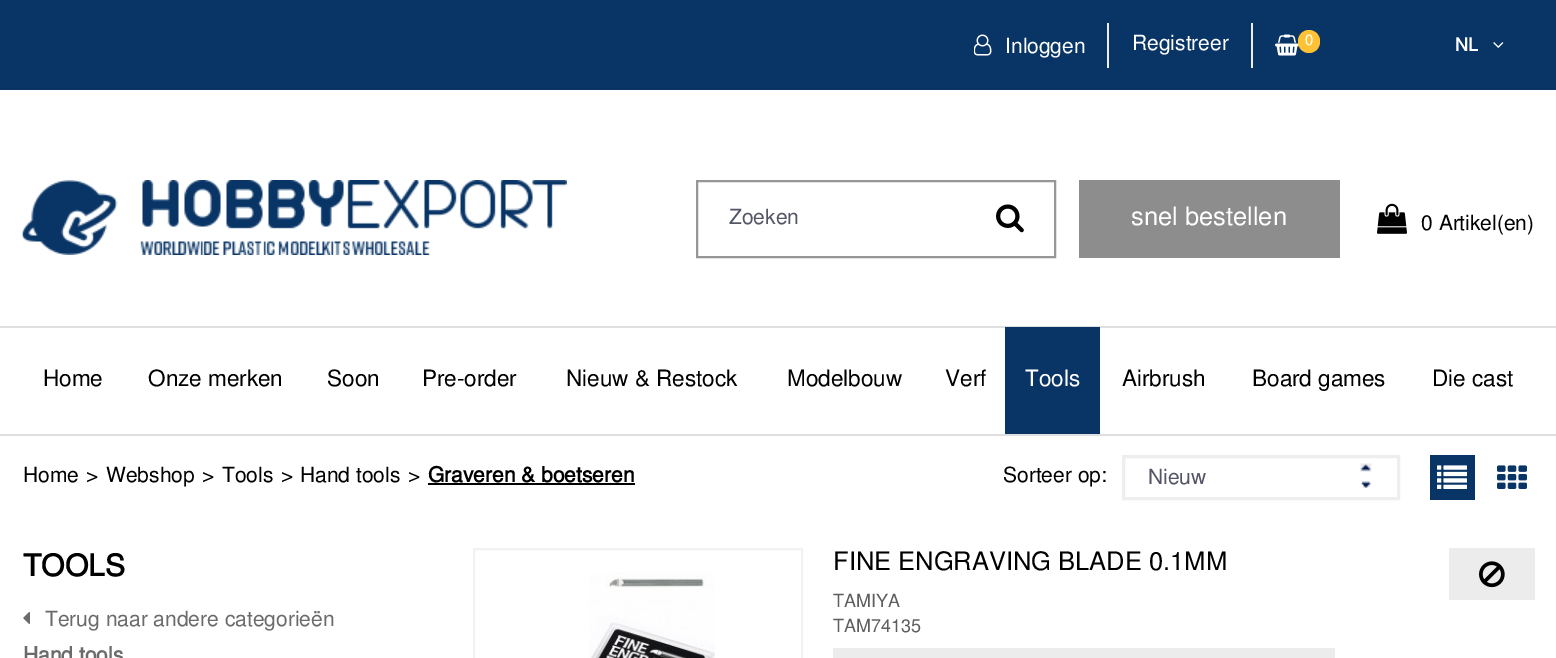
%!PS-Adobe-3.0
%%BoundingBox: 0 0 1556 658
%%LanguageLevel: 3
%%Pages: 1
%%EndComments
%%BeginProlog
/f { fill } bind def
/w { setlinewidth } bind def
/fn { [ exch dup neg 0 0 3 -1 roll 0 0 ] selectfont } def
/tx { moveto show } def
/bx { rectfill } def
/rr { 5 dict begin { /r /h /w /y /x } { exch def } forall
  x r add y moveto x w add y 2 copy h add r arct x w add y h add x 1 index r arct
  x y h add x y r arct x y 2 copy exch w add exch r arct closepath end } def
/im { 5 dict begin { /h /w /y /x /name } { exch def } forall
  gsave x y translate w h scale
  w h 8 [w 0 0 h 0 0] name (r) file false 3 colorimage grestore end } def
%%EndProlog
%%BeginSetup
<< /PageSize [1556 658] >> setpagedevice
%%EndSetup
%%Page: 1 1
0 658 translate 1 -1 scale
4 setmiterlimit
1 setgray
0 0 1556 658 bx
0.035 0.208 0.4 setrgbcolor
0 0 1556 90 bx
0.933 setgray
1107 23 2 45 bx
(image0.raw) 974 34 18 22 im
/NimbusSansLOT-Regular 21 fn
1 setgray
(Inloggen) 1005 53 tx
0.933 setgray
1251 23 2 45 bx
1 setgray
(Registreer) 1132 50 tx
(image1.raw) 1275 34 24 22 im
0.996 0.761 0.204 setrgbcolor
1298 30 22 23 11 rr f
/NimbusSansLOT-Regular 15 fn
1 setgray
(0) 1305 45 tx
/NimbusSansLOT-Bold 18 fn
(NL) 1455 51 tx
(image2.raw) 1493 42 11 6 im
(image3.raw) 22 180 545 75 im
0.592 setgray
2 w
697 181 358 76 rectstroke
/NimbusSansLOT-Regular 21 fn
0.329 0.333 0.404 setrgbcolor
(Zoeken) 729 224 tx
(image4.raw) 996 204 28 29 im
0.553 setgray
1079 180 261 78 bx
/NimbusSansLOT-Regular 25.5 fn
1 setgray
(snel bestellen) 1131 225 tx
(image5.raw) 1377 203 30 31 im
/NimbusSansLOT-Regular 21 fn
0 setgray
(0 Artikel\(en\)) 1421 230 tx
0.875 setgray
0 326 1556 2 bx
0 434 1556 2 bx
/NimbusSansLOT-Regular 22.5 fn
0 setgray
(Home) 43 386 tx
(Onze merken) 148 386 tx
(Soon) 327 386 tx
(Pre-order) 422 386 tx
(Nieuw & Restock) 566 386 tx
(Modelbouw) 787 386 tx
(Verf) 945 386 tx
0.035 0.208 0.4 setrgbcolor
1005 327 95 107 bx
1 setgray
(Tools) 1025 386 tx
0 setgray
(Airbrush) 1122 386 tx
(Board games) 1252 386 tx
(Die cast) 1432 386 tx
/NimbusSansLOT-Regular 21 fn
(Home) 23 482 tx
(>) 86 482 tx
(Webshop) 106 482 tx
(>) 202 482 tx
(Tools) 222 482 tx
(>) 281 482 tx
(Hand tools) 300 482 tx
(>) 408 482 tx
/NimbusSansLOT-Bold 21 fn
(Graveren & boetseren) 428 482 tx
428 483 207 2 bx
/NimbusSansLOT-Regular 21 fn
(Sorteer op:) 1003 482 tx
(image6.raw) 1360 463 12 25 im
0.933 setgray
3 w
1123.5 456.5 275 42 rectstroke
0.329 0.333 0.404 setrgbcolor
(Nieuw) 1148 484 tx
0.035 0.208 0.4 setrgbcolor
1430 455 45 45 bx
(image7.raw) 1437 465 30 24 im
(image8.raw) 1497 465 30 24 im
/NimbusSansLOT-Bold 30 fn
0 setgray
(TOOLS) 23 576 tx
(image9.raw) 23 612 7 12 im
/NimbusSansLOT-Regular 21 fn
0.42 setgray
(Terug naar andere categorieën) 45 626 tx
/NimbusSansLOT-Bold 21 fn
(Hand tools) 23 662 tx
0.949 setgray
2 w
474 549 328 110 rectstroke
(image10.raw) 589 572 126 86 im
/NimbusSansLOT-Regular 25.5 fn
0 setgray
(FINE ENGRAVING BLADE 0.1MM) 833 570 tx
/NimbusSansLOT-Regular 18 fn
0.369 setgray
(TAMIYA) 833 607 tx
(TAM74135) 833 632 tx
0.925 setgray
833 648 502 10 bx
1449 548 86 52 bx
(image11.raw) 1479 561 26 27 im
showpage
%%EOF
